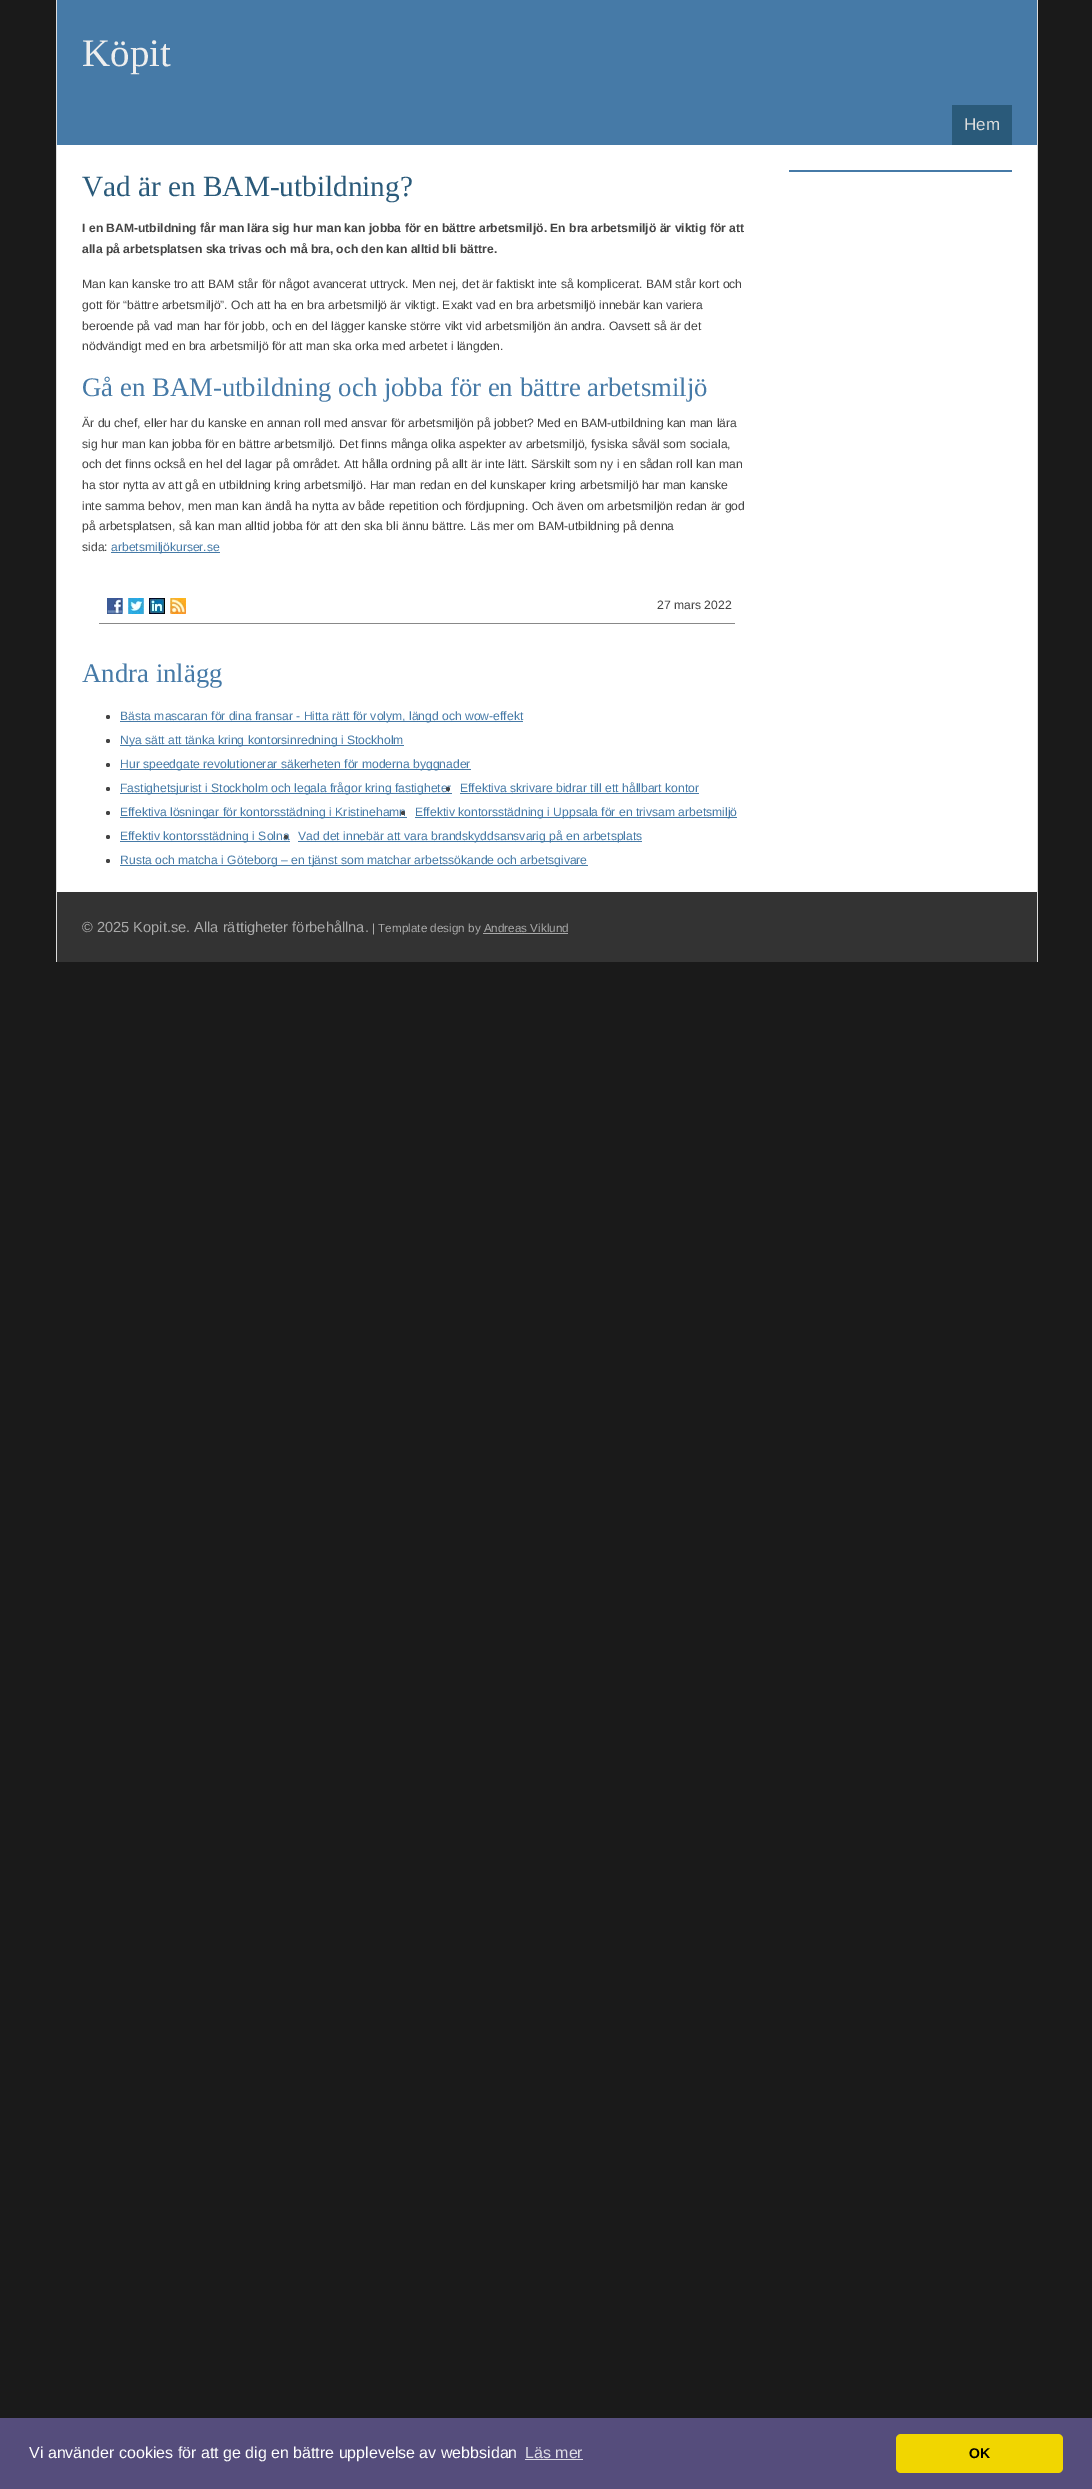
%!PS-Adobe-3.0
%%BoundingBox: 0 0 1092 2489
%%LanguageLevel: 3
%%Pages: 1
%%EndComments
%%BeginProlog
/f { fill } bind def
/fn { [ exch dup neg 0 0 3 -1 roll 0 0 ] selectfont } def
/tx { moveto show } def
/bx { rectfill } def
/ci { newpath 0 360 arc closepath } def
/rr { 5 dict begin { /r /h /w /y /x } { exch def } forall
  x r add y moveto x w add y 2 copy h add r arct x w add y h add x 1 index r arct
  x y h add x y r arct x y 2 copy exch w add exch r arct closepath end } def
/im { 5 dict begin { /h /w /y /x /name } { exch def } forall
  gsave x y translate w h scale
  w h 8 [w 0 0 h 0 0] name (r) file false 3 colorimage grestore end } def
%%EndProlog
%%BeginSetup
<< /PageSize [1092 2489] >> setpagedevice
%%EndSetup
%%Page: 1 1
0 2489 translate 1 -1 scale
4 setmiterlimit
0.102 setgray
0 0 1092 2489 bx
0.275 0.478 0.655 setrgbcolor
57 0 980 145 bx
0.867 setgray
1037 0 1 962 bx
56 0 1 962 bx
/LiberationSerif-Regular 39 fn
0.933 setgray
(Köpit) 82 66 tx
0.165 0.353 0.478 setrgbcolor
952 105 60 40 bx
/LiberationSans-Regular 17 fn
0.867 setgray
(Hem) 964 130 tx
1 setgray
57 145 980 747 bx
0.275 0.478 0.655 setrgbcolor
789 170 223 2 bx
/LiberationSerif-Regular 29.25 fn
0.165 0.353 0.478 setrgbcolor
(Vad är en BAM-utbildning?) 82 196 tx
/LiberationSans-Bold 12.15 fn
0.267 setgray
(I en BAM-utbildning får man lära sig hur man kan jobba för en bättre arbetsmiljö. En bra arbetsmiljö är viktig för att) 82 232 tx
(alla på arbetsplatsen ska trivas och må bra, och den kan alltid bli bättre.) 82 253 tx
/LiberationSans-Regular 12.15 fn
(Man kan kanske tro att BAM står för något avancerat uttryck. Men nej, det är faktiskt inte så komplicerat. BAM står kort och) 82 288 tx
(gott för “bättre arbetsmiljö”. Och att ha en bra arbetsmiljö är viktigt. Exakt vad en bra arbetsmiljö innebär kan variera) 82 309 tx
(beroende på vad man har för jobb, och en del lägger kanske större vikt vid arbetsmiljön än andra. Oavsett så är det) 82 330 tx
(nödvändigt med en bra arbetsmiljö för att man ska orka med arbetet i längden.) 82 350 tx
/LiberationSerif-Regular 26.75 fn
0.275 0.478 0.655 setrgbcolor
(Gå en BAM-utbildning och jobba för en bättre arbetsmiljö) 82 396 tx
/LiberationSans-Regular 12.15 fn
0.267 setgray
(Är du chef, eller har du kanske en annan roll med ansvar för arbetsmiljön på jobbet? Med en BAM-utbildning kan man lära) 82 427 tx
(sig hur man kan jobba för en bättre arbetsmiljö. Det finns många olika aspekter av arbetsmiljö, fysiska såväl som sociala,) 82 448 tx
(och det finns också en hel del lagar på området. Att hålla ordning på allt är inte lätt. Särskilt som ny i en sådan roll kan man) 82 468 tx
(ha stor nytta av att gå en utbildning kring arbetsmiljö. Har man redan en del kunskaper kring arbetsmiljö har man kanske) 82 489 tx
(inte samma behov, men man kan ändå ha nytta av både repetition och fördjupning. Och även om arbetsmiljön redan är god) 82 510 tx
(på arbetsplatsen, så kan man alltid jobba för att den ska bli ännu bättre. Läs mer om BAM-utbildning på denna) 82 530 tx
(sida:) 82 551 tx
0.275 0.478 0.655 setrgbcolor
111 552 109 1 bx
(arbetsmiljökurser.se) 111 551 tx
(image0.raw) 107 598 16 16 im
(image1.raw) 128 598 16 16 im
(image2.raw) 149 598 16 16 im
(image3.raw) 170 598 16 16 im
0.267 setgray
(27 mars 2022) 657 609 tx
0.533 setgray
99 623 636 1 bx
/LiberationSerif-Regular 26.75 fn
0.275 0.478 0.655 setrgbcolor
(Andra inlägg) 82 682 tx
0.267 setgray
108 717 2 ci f
0.275 0.478 0.655 setrgbcolor
120 721 403 1 bx
/LiberationSans-Regular 12.15 fn
(Bästa mascaran för dina fransar - Hitta rätt för volym, längd och wow-effekt) 120 720 tx
0.267 setgray
108 741 2 ci f
0.275 0.478 0.655 setrgbcolor
120 745 284 1 bx
(Nya sätt att tänka kring kontorsinredning i Stockholm) 120 744 tx
0.267 setgray
108 765 2 ci f
0.275 0.478 0.655 setrgbcolor
120 769 351 1 bx
(Hur speedgate revolutionerar säkerheten för moderna byggnader) 120 768 tx
0.267 setgray
108 789 2 ci f
0.275 0.478 0.655 setrgbcolor
120 793 332 1 bx
(Fastighetsjurist i Stockholm och legala frågor kring fastigheter) 120 792 tx
0.267 setgray
448 789 2 ci f
0.275 0.478 0.655 setrgbcolor
(Effektiva skrivare bidrar till ett hållbart kontor) 460 792 tx
460 793 239 1 bx
0.267 setgray
108 813 2 ci f
0.275 0.478 0.655 setrgbcolor
120 817 287 1 bx
(Effektiva lösningar för kontorsstädning i Kristinehamn) 120 816 tx
0.267 setgray
403 813 2 ci f
0.275 0.478 0.655 setrgbcolor
415 817 322 1 bx
(Effektiv kontorsstädning i Uppsala för en trivsam arbetsmiljö) 415 816 tx
0.267 setgray
108 837 2 ci f
0.275 0.478 0.655 setrgbcolor
120 841 170 1 bx
(Effektiv kontorsstädning i Solna) 120 840 tx
0.267 setgray
286 837 2 ci f
0.275 0.478 0.655 setrgbcolor
298 841 344 1 bx
(Vad det innebär att vara brandskyddsansvarig på en arbetsplats) 298 840 tx
0.267 setgray
108 861 2 ci f
0.275 0.478 0.655 setrgbcolor
120 865 468 1 bx
(Rusta och matcha i Göteborg – en tjänst som matchar arbetssökande och arbetsgivare) 120 864 tx
0.2 setgray
57 892 980 70 bx
/LiberationSans-Regular 14.6 fn
0.667 setgray
(© 2025 Kopit.se. Alla rättigheter förbehållna.) 82 932 tx
/LiberationSans-Regular 11.7 fn
(| Template design by Andreas Viklund) 372 932 tx
483 933 85 1 bx
0.333 0.302 0.486 setrgbcolor
0 2418 1092 71 bx
/LiberationSans-Regular 16 fn
1 setgray
(Vi använder cookies för att ge dig en bättre upplevelse av webbsidan) 29 2458 tx
0.867 0.859 0.898 setrgbcolor
(Läs mer) 525 2458 tx
525 2459 58 1 bx
0.945 0.839 0 setrgbcolor
896 2434 167 39 5 rr f
/LiberationSans-Bold 14 fn
0 setgray
(OK) 969 2458 tx
showpage
%%EOF
